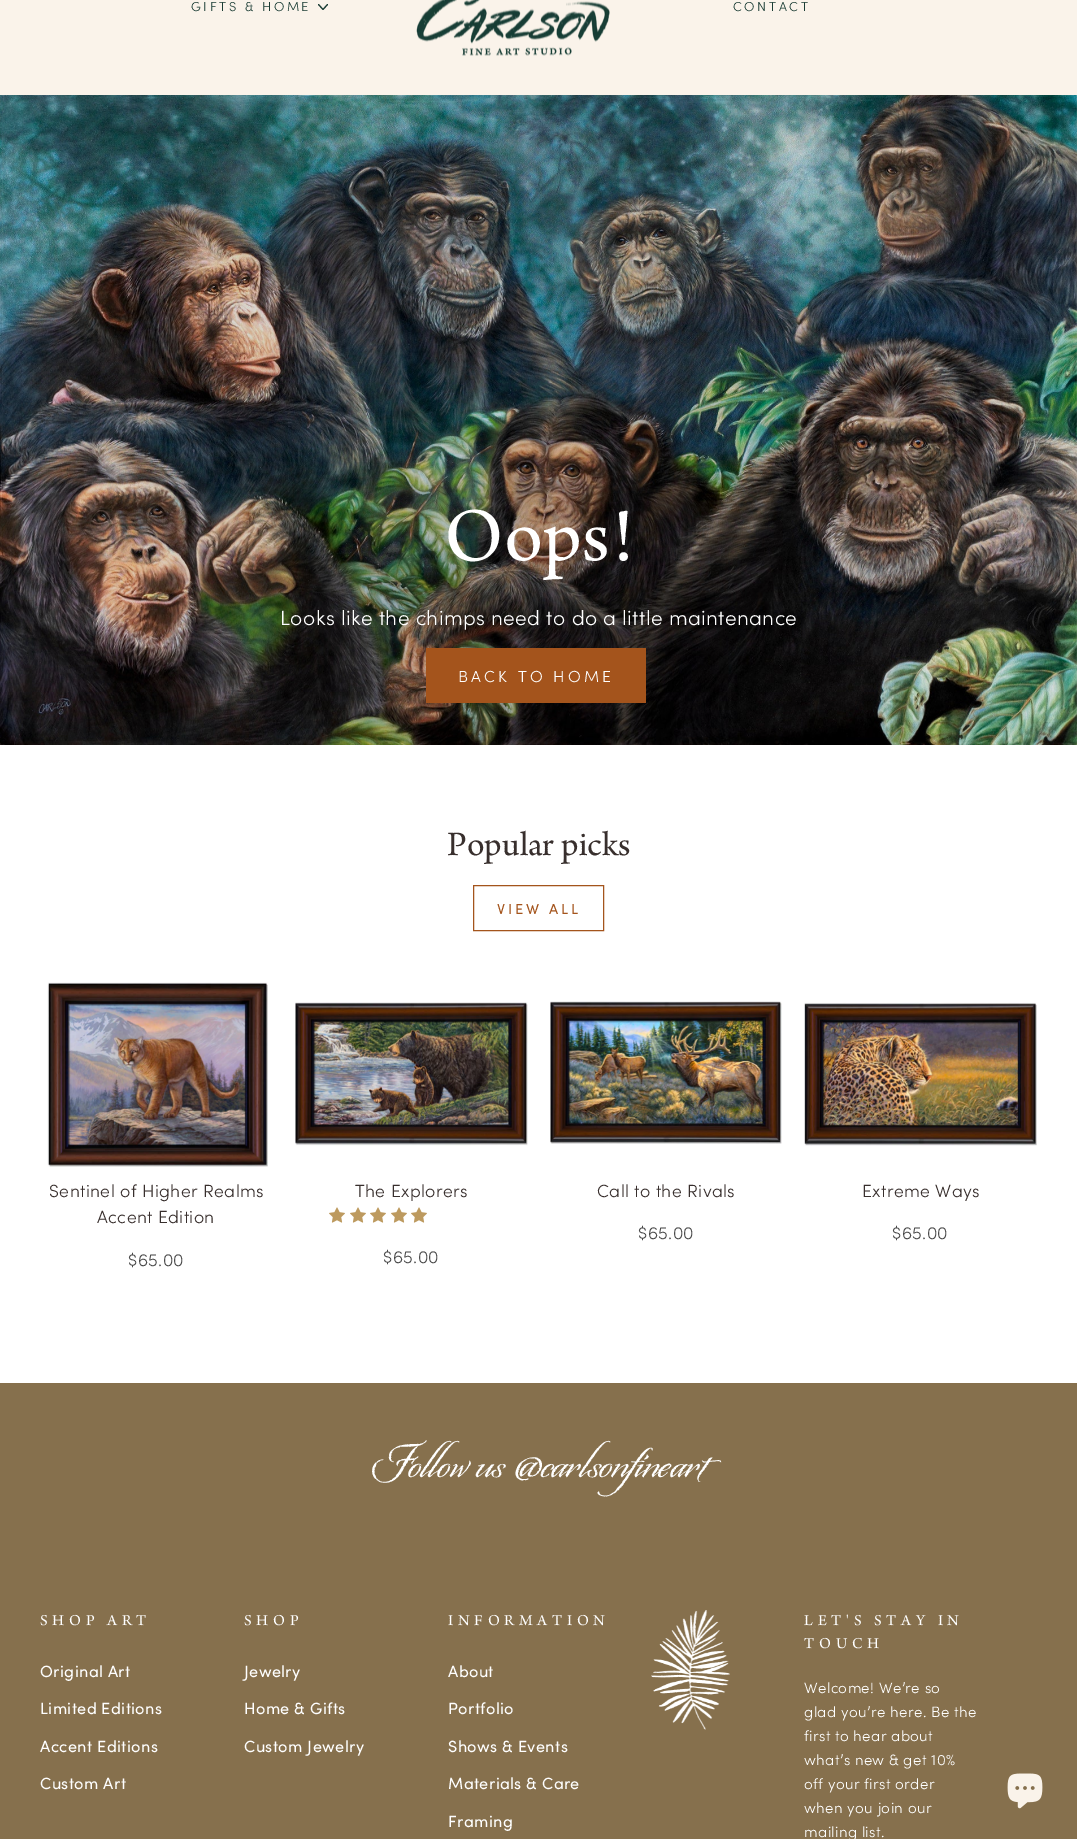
%!PS-Adobe-3.0
%%BoundingBox: 0 0 1077 1839
%%LanguageLevel: 3
%%Pages: 1
%%EndComments
%%BeginProlog
/m { moveto } bind def
/l { lineto } bind def
/S { stroke } bind def
/w { setlinewidth } bind def
/fn { [ exch dup neg 0 0 3 -1 roll 0 0 ] selectfont } def
/tx { moveto show } def
/bx { rectfill } def
/im { 5 dict begin { /h /w /y /x /name } { exch def } forall
  gsave x y translate w h scale
  w h 8 [w 0 0 h 0 0] name (r) file false 3 colorimage grestore end } def
%%EndProlog
%%BeginSetup
<< /PageSize [1077 1839] >> setpagedevice
%%EndSetup
%%Page: 1 1
0 1839 translate 1 -1 scale
4 setmiterlimit
1 setgray
0 0 1077 1839 bx
0.98 0.953 0.918 setrgbcolor
0 0 1077 95 bx
/Sofia-Light 13 fn
0.102 0.235 0.204 setrgbcolor
191 11 m 2.6 0 (GIFTS & HOME) ashow
1.1 w
1 setlinecap
1 setlinejoin
318.5 4.5 m 323 9.5 l 327.5 4.5 l S
(image0.raw) 416 0 194 56 im
733 11 m 2.6 0 (CONTACT) ashow
(image1.raw) 0 95 1077 650 im
/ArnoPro-Regular 80 fn
1 setgray
(Oops!) 444 560 tx
/Sofia-Light 20.8 fn
280 625 m 0.4 0 (Looks like the chimps need to do a little maintenance) ashow
0.643 0.329 0.11 setrgbcolor
426 648 220 55 bx
/Sofia-Light 16 fn
1 setgray
458 682 m 3.25 0 (BACK TO HOME) ashow
/ArnoPro-Regular 36 fn
0.22 0.184 0.176 setrgbcolor
(Popular picks) 447 855 tx
0.643 0.329 0.11 setrgbcolor
1 w
0 setlinecap
0 setlinejoin
473.5 885.5 130 45 rectstroke
/Sofia-Regular 14.5 fn
497 914 m 3 0 (VIEW ALL) ashow
(image2.raw) 47 982 221 185 im
/Sofia-Light 17.6 fn
0.22 0.184 0.176 setrgbcolor
49 1197 m 0.4 0 (Sentinel of Higher Realms) ashow
97 1223 m 0.4 0 (Accent Edition) ashow
0.29 setgray
128 1266 m 0.4 0 ($65.00) ashow
(image3.raw) 295 1002 233 144 im
0.22 0.184 0.176 setrgbcolor
355 1197 m 0.4 0 (The Explorers) ashow
(image4.raw) 329 1207 16 16 im
(image4.raw) 350 1207 16 16 im
(image4.raw) 370 1207 16 16 im
(image4.raw) 391 1207 16 16 im
(image4.raw) 411 1207 16 16 im
0.29 setgray
383 1263 m 0.4 0 ($65.00) ashow
(image5.raw) 550 1001 232 143 im
0.22 0.184 0.176 setrgbcolor
597 1197 m 0.4 0 (Call to the Rivals) ashow
0.29 setgray
638 1239 m 0.4 0 ($65.00) ashow
(image6.raw) 804 1002 233 144 im
0.22 0.184 0.176 setrgbcolor
862 1197 m 0.4 0 (Extreme Ways) ashow
0.29 setgray
892 1239 m 0.4 0 ($65.00) ashow
0.525 0.439 0.302 setrgbcolor
0 1383 1077 456 bx
/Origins-Regular 48 fn
1 setgray
(Follow us @carlsonfineart) 370 1477 tx
/ArnoPro-Regular 16 fn
40 1625 m 4.75 0 (SHOP ART) ashow
/Sofia-Regular 16.25 fn
40 1677 m 0.4 0 (Original Art) ashow
40 1714 m 0.4 0 (Limited Editions) ashow
40 1752 m 0.4 0 (Accent Editions) ashow
40 1789 m 0.4 0 (Custom Art) ashow
/ArnoPro-Regular 16 fn
244 1625 m 4.75 0 (SHOP) ashow
/Sofia-Regular 16.25 fn
244 1677 m 0.4 0 (Jewelry) ashow
244 1714 m 0.4 0 (Home & Gifts) ashow
244 1752 m 0.4 0 (Custom Jewelry) ashow
/ArnoPro-Regular 16 fn
448 1625 m 4.75 0 (INFORMATION) ashow
/Sofia-Regular 16.25 fn
448 1677 m 0.4 0 (About) ashow
448 1714 m 0.4 0 (Portfolio) ashow
448 1752 m 0.4 0 (Shows & Events) ashow
448 1789 m 0.4 0 (Materials & Care) ashow
448 1827 m 0.4 0 (Framing) ashow
(image7.raw) 651 1610 79 120 im
/ArnoPro-Regular 16 fn
804 1625 m 4.75 0 (LET'S STAY IN) ashow
804 1648 m 4.75 0 (TOUCH) ashow
/Sofia-Light 15 fn
804 1693 m 0.4 0 (Welcome! We’re so) ashow
804 1717 m 0.4 0 (glad you’re here. Be the) ashow
804 1741 m 0.4 0 (first to hear about) ashow
804 1765 m 0.4 0 (what’s new & get 10%) ashow
804 1789 m 0.4 0 (off your first order) ashow
804 1813 m 0.4 0 (when you join our) ashow
804 1837 m 0.4 0 (mailing list.) ashow
(image8.raw) 1007 1773 36 36 im
showpage
%%EOF
